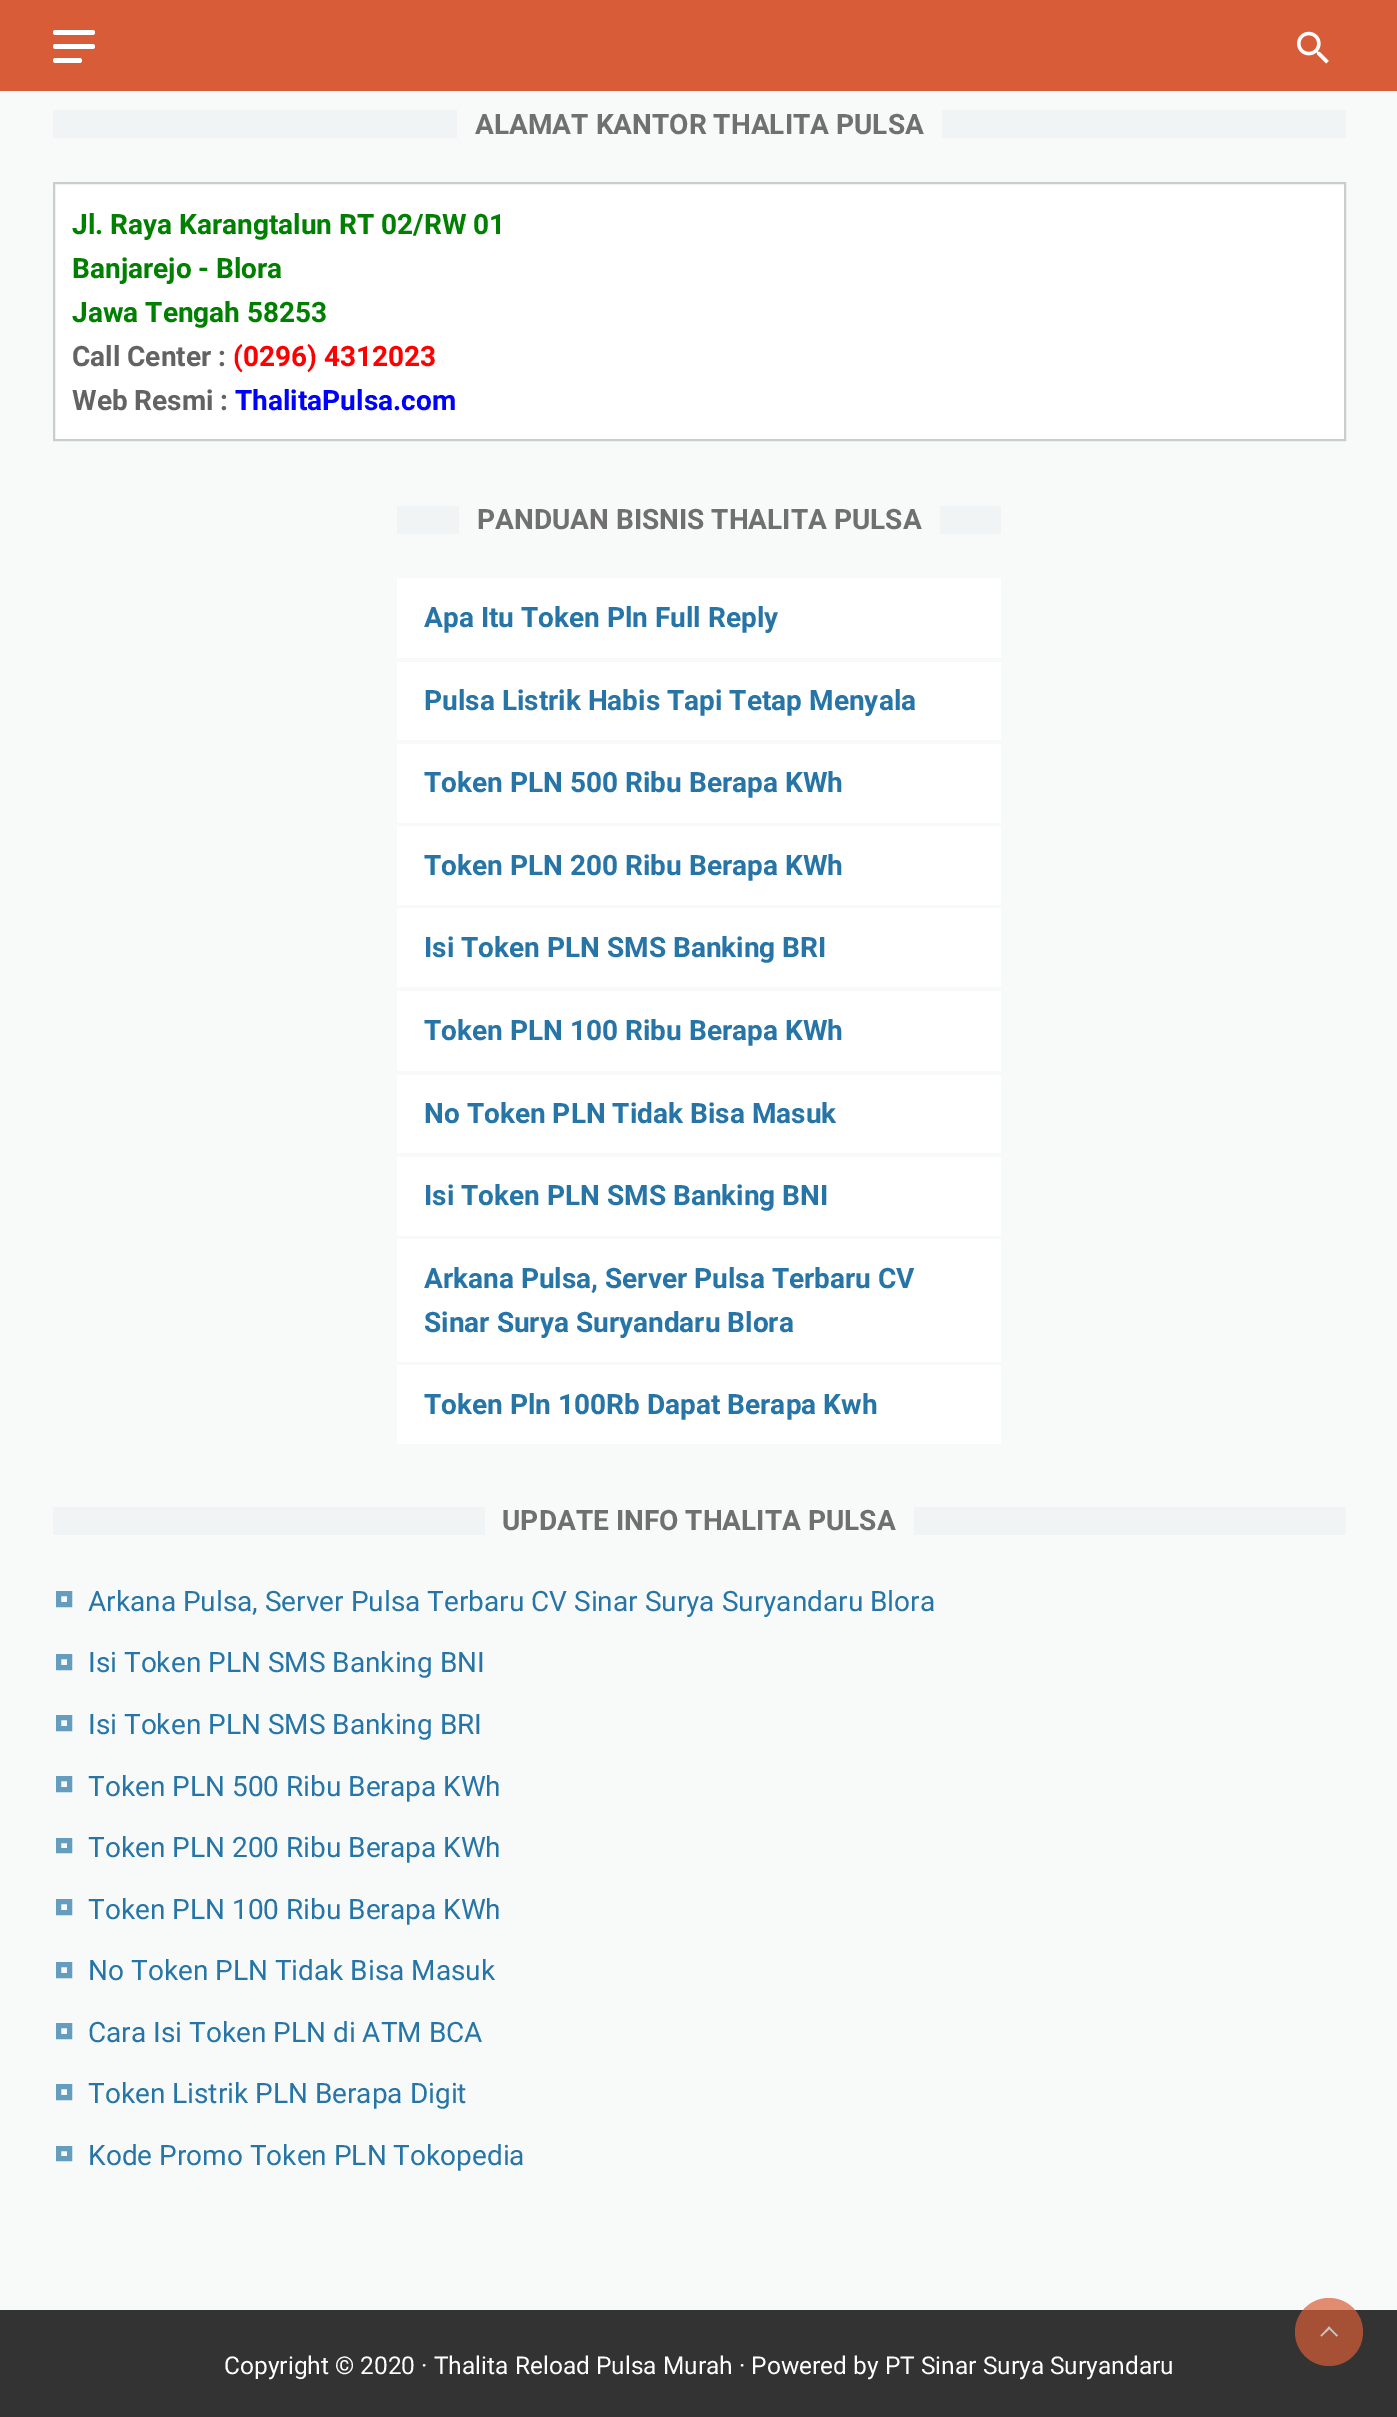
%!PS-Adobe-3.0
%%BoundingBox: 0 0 1397 2417
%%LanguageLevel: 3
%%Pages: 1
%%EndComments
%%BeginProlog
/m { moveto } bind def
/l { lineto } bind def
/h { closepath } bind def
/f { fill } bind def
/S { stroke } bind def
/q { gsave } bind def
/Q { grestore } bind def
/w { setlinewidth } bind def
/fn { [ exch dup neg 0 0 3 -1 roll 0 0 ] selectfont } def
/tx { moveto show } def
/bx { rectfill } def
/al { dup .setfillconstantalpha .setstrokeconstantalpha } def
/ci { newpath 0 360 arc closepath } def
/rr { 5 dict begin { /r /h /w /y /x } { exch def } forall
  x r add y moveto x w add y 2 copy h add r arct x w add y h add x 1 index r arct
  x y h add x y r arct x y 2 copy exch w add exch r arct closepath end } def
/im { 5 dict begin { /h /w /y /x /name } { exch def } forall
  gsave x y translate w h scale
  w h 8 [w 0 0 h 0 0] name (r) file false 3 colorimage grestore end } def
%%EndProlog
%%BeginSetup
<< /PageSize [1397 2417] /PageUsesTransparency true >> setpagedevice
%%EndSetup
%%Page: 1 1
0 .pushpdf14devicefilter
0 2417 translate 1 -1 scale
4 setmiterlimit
0.2 setgray
0 0 1397 2417 bx
0.843 0.361 0.216 setrgbcolor
0 0 1397 91 bx
1 setgray
53 30 42 5 2.5 rr f
53 44 42 5 2.5 rr f
53 58 29 5 2.5 rr f
(image0.raw) 1297 31 32 33 im
0.973 0.98 0.98 setrgbcolor
0 91 1397 2219 bx
0.941 0.957 0.957 setrgbcolor
53 110 1293 28 bx
0.973 0.98 0.98 setrgbcolor
457 110 485 28 bx
/Roboto-Bold 28 fn
0.439 setgray
(ALAMAT KANTOR THALITA PULSA) 475 134 tx
1 setgray
54 183 m 1345 183 l 1345 440 l 54 440 l h q f Q
0.8 setgray
2 w
S
0 0.502 0 setrgbcolor
(Jl. Raya Karangtalun RT 02/RW 01) 72 234 tx
(Banjarejo - Blora) 72 278 tx
(Jawa Tengah 58253) 72 322 tx
0.388 setgray
(Call Center :) 72 366 tx
1 0 0 setrgbcolor
(\(0296\) 4312023) 233 366 tx
0.388 setgray
(Web Resmi :) 72 410 tx
0 0 1 setrgbcolor
(ThalitaPulsa.com) 235 410 tx
0.941 0.957 0.957 setrgbcolor
397 506 604 28 bx
0.973 0.98 0.98 setrgbcolor
459 506 481 28 bx
0.439 setgray
(PANDUAN BISNIS THALITA PULSA) 477 529 tx
1 setgray
397 578 604 80 bx
0.149 0.459 0.651 setrgbcolor
(Apa Itu Token Pln Full Reply) 424 627 tx
1 setgray
397 662 604 78 bx
0.149 0.459 0.651 setrgbcolor
(Pulsa Listrik Habis Tapi Tetap Menyala) 424 710 tx
1 setgray
397 744 604 79 bx
0.149 0.459 0.651 setrgbcolor
(Token PLN 500 Ribu Berapa KWh) 424 792 tx
1 setgray
397 826 604 79 bx
0.149 0.459 0.651 setrgbcolor
(Token PLN 200 Ribu Berapa KWh) 424 875 tx
1 setgray
397 908 604 79 bx
0.149 0.459 0.651 setrgbcolor
(Isi Token PLN SMS Banking BRI) 424 957 tx
1 setgray
397 991 604 80 bx
0.149 0.459 0.651 setrgbcolor
(Token PLN 100 Ribu Berapa KWh) 424 1040 tx
1 setgray
397 1075 604 78 bx
0.149 0.459 0.651 setrgbcolor
(No Token PLN Tidak Bisa Masuk) 424 1123 tx
1 setgray
397 1157 604 79 bx
0.149 0.459 0.651 setrgbcolor
(Isi Token PLN SMS Banking BNI) 424 1205 tx
1 setgray
397 1239 604 123 bx
0.149 0.459 0.651 setrgbcolor
(Arkana Pulsa, Server Pulsa Terbaru CV) 424 1288 tx
(Sinar Surya Suryandaru Blora) 424 1332 tx
1 setgray
397 1365 604 79 bx
0.149 0.459 0.651 setrgbcolor
(Token Pln 100Rb Dapat Berapa Kwh) 424 1414 tx
0.941 0.957 0.957 setrgbcolor
53 1507 1293 28 bx
0.973 0.98 0.98 setrgbcolor
485 1507 429 28 bx
0.439 setgray
(UPDATE INFO THALITA PULSA) 502 1530 tx
0.396 0.616 0.749 setrgbcolor
5 w
58.5 1593.5 11 11 rectstroke
/Roboto-Regular 28 fn
0.149 0.459 0.651 setrgbcolor
(Arkana Pulsa, Server Pulsa Terbaru CV Sinar Surya Suryandaru Blora) 88 1611 tx
0.396 0.616 0.749 setrgbcolor
58.5 1656.5 11 11 rectstroke
0.149 0.459 0.651 setrgbcolor
(Isi Token PLN SMS Banking BNI) 88 1672 tx
0.396 0.616 0.749 setrgbcolor
58.5 1717.5 11 11 rectstroke
0.149 0.459 0.651 setrgbcolor
(Isi Token PLN SMS Banking BRI) 88 1734 tx
0.396 0.616 0.749 setrgbcolor
58.5 1778.5 11 11 rectstroke
0.149 0.459 0.651 setrgbcolor
(Token PLN 500 Ribu Berapa KWh) 88 1796 tx
0.396 0.616 0.749 setrgbcolor
58.5 1840.5 11 10 rectstroke
0.149 0.459 0.651 setrgbcolor
(Token PLN 200 Ribu Berapa KWh) 88 1857 tx
0.396 0.616 0.749 setrgbcolor
58.5 1901.5 11 11 rectstroke
0.149 0.459 0.651 setrgbcolor
(Token PLN 100 Ribu Berapa KWh) 88 1919 tx
0.396 0.616 0.749 setrgbcolor
58.5 1964.5 11 11 rectstroke
0.149 0.459 0.651 setrgbcolor
(No Token PLN Tidak Bisa Masuk) 88 1980 tx
0.396 0.616 0.749 setrgbcolor
58.5 2025.5 11 11 rectstroke
0.149 0.459 0.651 setrgbcolor
(Cara Isi Token PLN di ATM BCA) 88 2042 tx
0.396 0.616 0.749 setrgbcolor
58.5 2086.5 11 11 rectstroke
0.149 0.459 0.651 setrgbcolor
(Token Listrik PLN Berapa Digit) 88 2103 tx
0.396 0.616 0.749 setrgbcolor
58.5 2148.5 11 10 rectstroke
0.149 0.459 0.651 setrgbcolor
(Kode Promo Token PLN Tokopedia) 88 2165 tx
/Roboto-Regular 24.5 fn
1 setgray
(Copyright © 2020 · Thalita Reload Pulsa Murah · Powered by PT Sinar Surya Suryandaru) 224 2374 tx
0.7 al
0.843 0.361 0.216 setrgbcolor
1329 2332 34 ci f
1 al
0.761 setgray
1320.5 2335.5 m 1329 2326.5 l 1330.5 2328 l 1321.5 2336.5 l h f
1328 2328 m 1329 2326.5 l 1338 2335.5 l 1336.5 2336.5 l h f
.poppdf14devicefilter showpage
%%EOF
